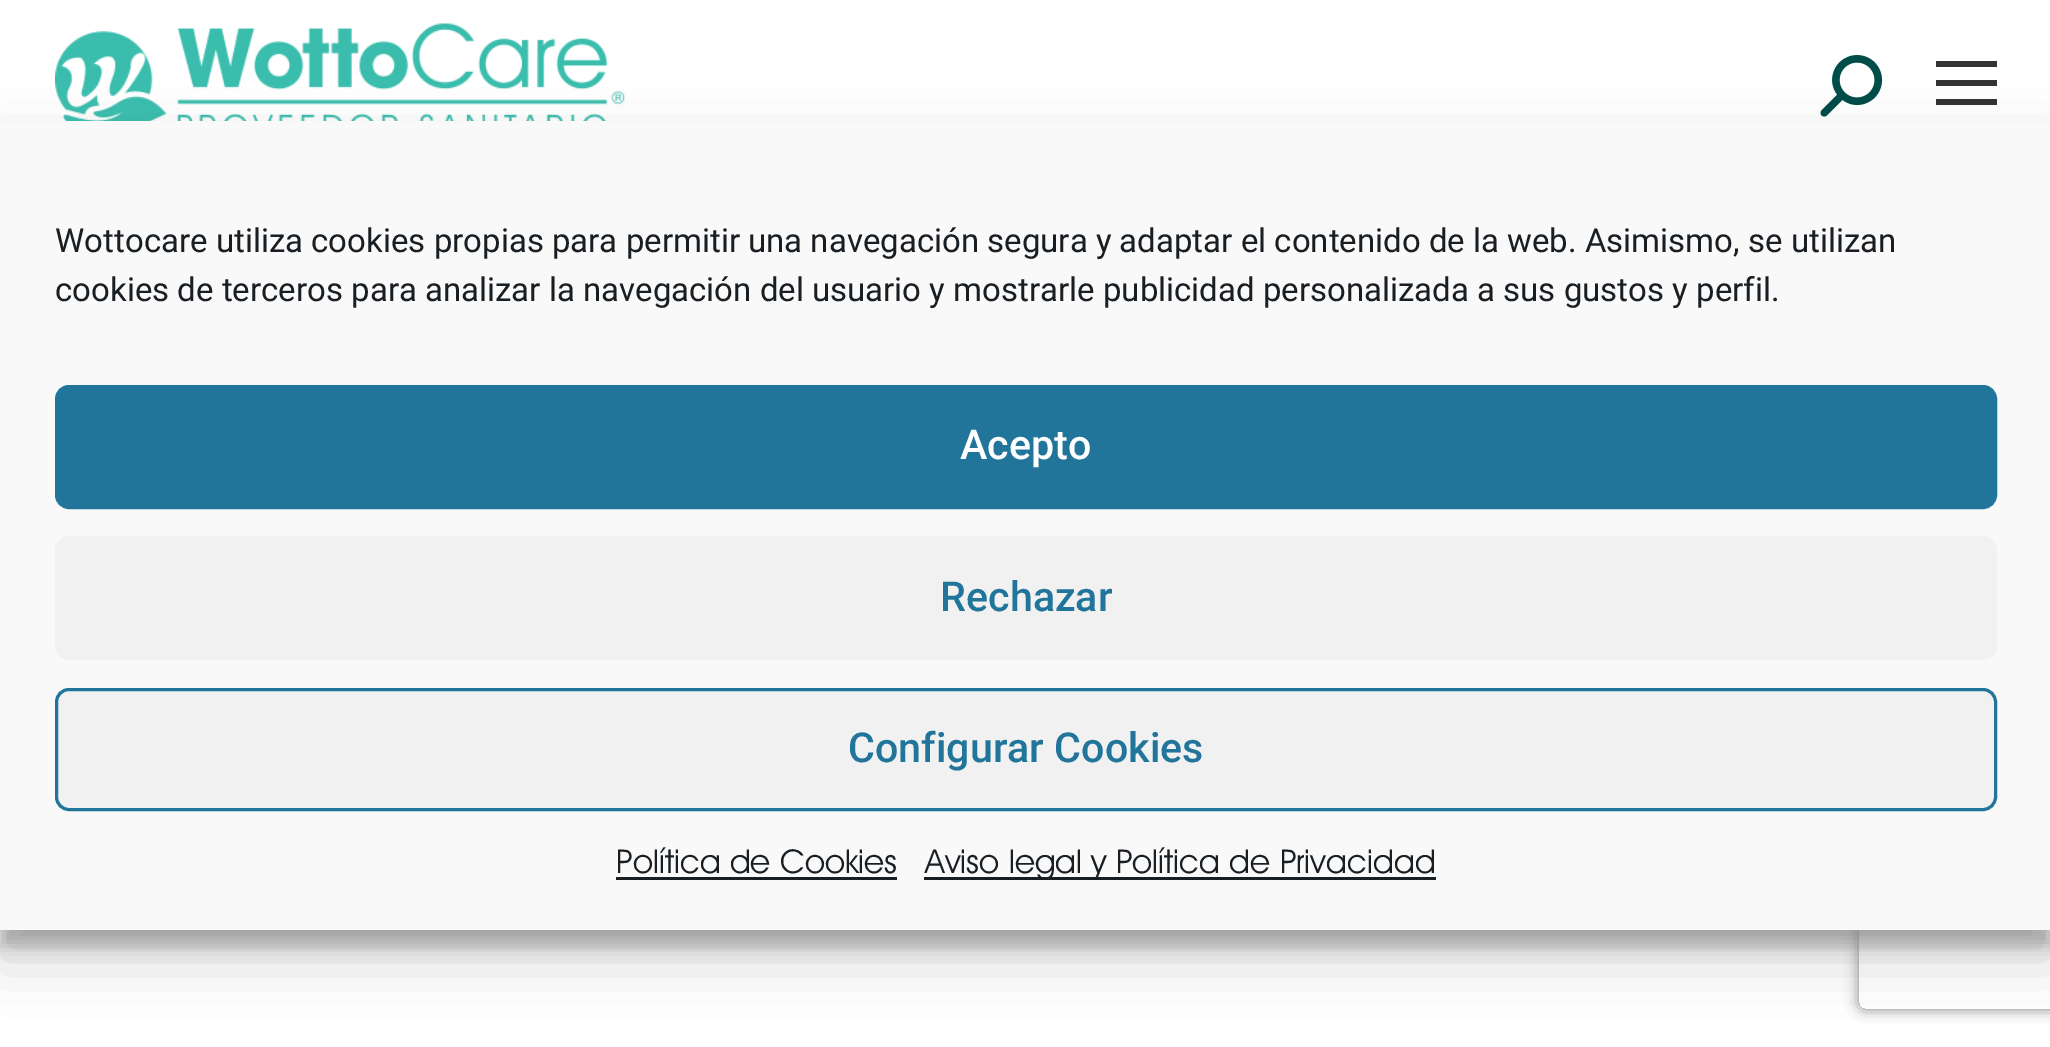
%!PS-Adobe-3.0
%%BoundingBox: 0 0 2050 1047
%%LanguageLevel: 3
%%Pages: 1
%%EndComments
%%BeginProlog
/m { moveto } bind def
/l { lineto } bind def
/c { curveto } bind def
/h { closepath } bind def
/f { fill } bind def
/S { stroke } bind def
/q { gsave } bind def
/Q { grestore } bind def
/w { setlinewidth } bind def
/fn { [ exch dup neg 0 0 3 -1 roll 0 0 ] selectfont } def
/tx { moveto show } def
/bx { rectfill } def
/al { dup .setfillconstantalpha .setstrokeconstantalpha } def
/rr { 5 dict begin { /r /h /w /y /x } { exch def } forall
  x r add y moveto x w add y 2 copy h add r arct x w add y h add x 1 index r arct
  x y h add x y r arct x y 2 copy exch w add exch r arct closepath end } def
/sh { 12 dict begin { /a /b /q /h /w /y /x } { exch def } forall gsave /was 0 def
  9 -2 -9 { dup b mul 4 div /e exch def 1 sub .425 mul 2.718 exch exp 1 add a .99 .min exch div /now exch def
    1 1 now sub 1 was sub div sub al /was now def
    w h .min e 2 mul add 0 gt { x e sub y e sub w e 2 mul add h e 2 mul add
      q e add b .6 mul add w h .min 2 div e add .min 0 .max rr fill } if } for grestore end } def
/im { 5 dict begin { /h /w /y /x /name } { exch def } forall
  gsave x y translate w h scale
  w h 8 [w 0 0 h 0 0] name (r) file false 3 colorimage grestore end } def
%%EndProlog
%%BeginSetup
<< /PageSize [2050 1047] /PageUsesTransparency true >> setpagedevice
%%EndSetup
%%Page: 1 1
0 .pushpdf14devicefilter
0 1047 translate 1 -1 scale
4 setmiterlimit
1 setgray
0 0 2050 1047 bx
(image0.raw) 55 23 570 98 im
(image1.raw) 1820 55 63 62 im
0.2 setgray
1936 80 61 6 bx
1936 61 61 6 bx
1936 99 61 6 bx
0 setgray
0 138 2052 808 0 8 0.23 sh
0 149 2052 808 0 27.5 0.19 sh
q
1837 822 m 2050 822 l 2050 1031 l 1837 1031 l h 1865 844 m 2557 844 l 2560.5 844 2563 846.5 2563 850 c 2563 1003 l 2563 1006.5 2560.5 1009 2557 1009 c 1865 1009 l 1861.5 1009 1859 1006.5 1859 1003 c 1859 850 l 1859 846.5 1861.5 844 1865 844 c h eoclip newpath
0.502 setgray
1859 844 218 165 6 7 1 sh
Q
0.976 setgray
0 121 2050 809 bx
/Roboto-Regular 33 fn
0.098 0.118 0.137 setrgbcolor
(Wottocare utiliza cookies propias para permitir una navegación segura y adaptar el contenido de la web. Asimismo, se utilizan) 55 252 tx
(cookies de terceros para analizar la navegación del usuario y mostrarle publicidad personalizada a sus gustos y perfil.) 55 301 tx
0.129 0.459 0.608 setrgbcolor
56.5 386.5 1939 121 12.5 rr q f Q
3 w
S
/Roboto-Medium 41.25 fn
1 setgray
(Acepto) 960 459 tx
0.945 setgray
55 536 1942 124 14 rr f
0.129 0.459 0.608 setrgbcolor
(Rechazar) 940 611 tx
0.945 setgray
56.5 689.5 1939 120 12.5 rr q f Q
0.129 0.459 0.608 setrgbcolor
S
(Configurar Cookies) 848 762 tx
/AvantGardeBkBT-Regular 33 fn
0.098 0.118 0.137 setrgbcolor
(Política de Cookies) 616 873 tx
616 877 281 3 bx
924 877 512 3 bx
(Aviso legal y Política de Privacidad) 925 873 tx
.poppdf14devicefilter showpage
%%EOF
